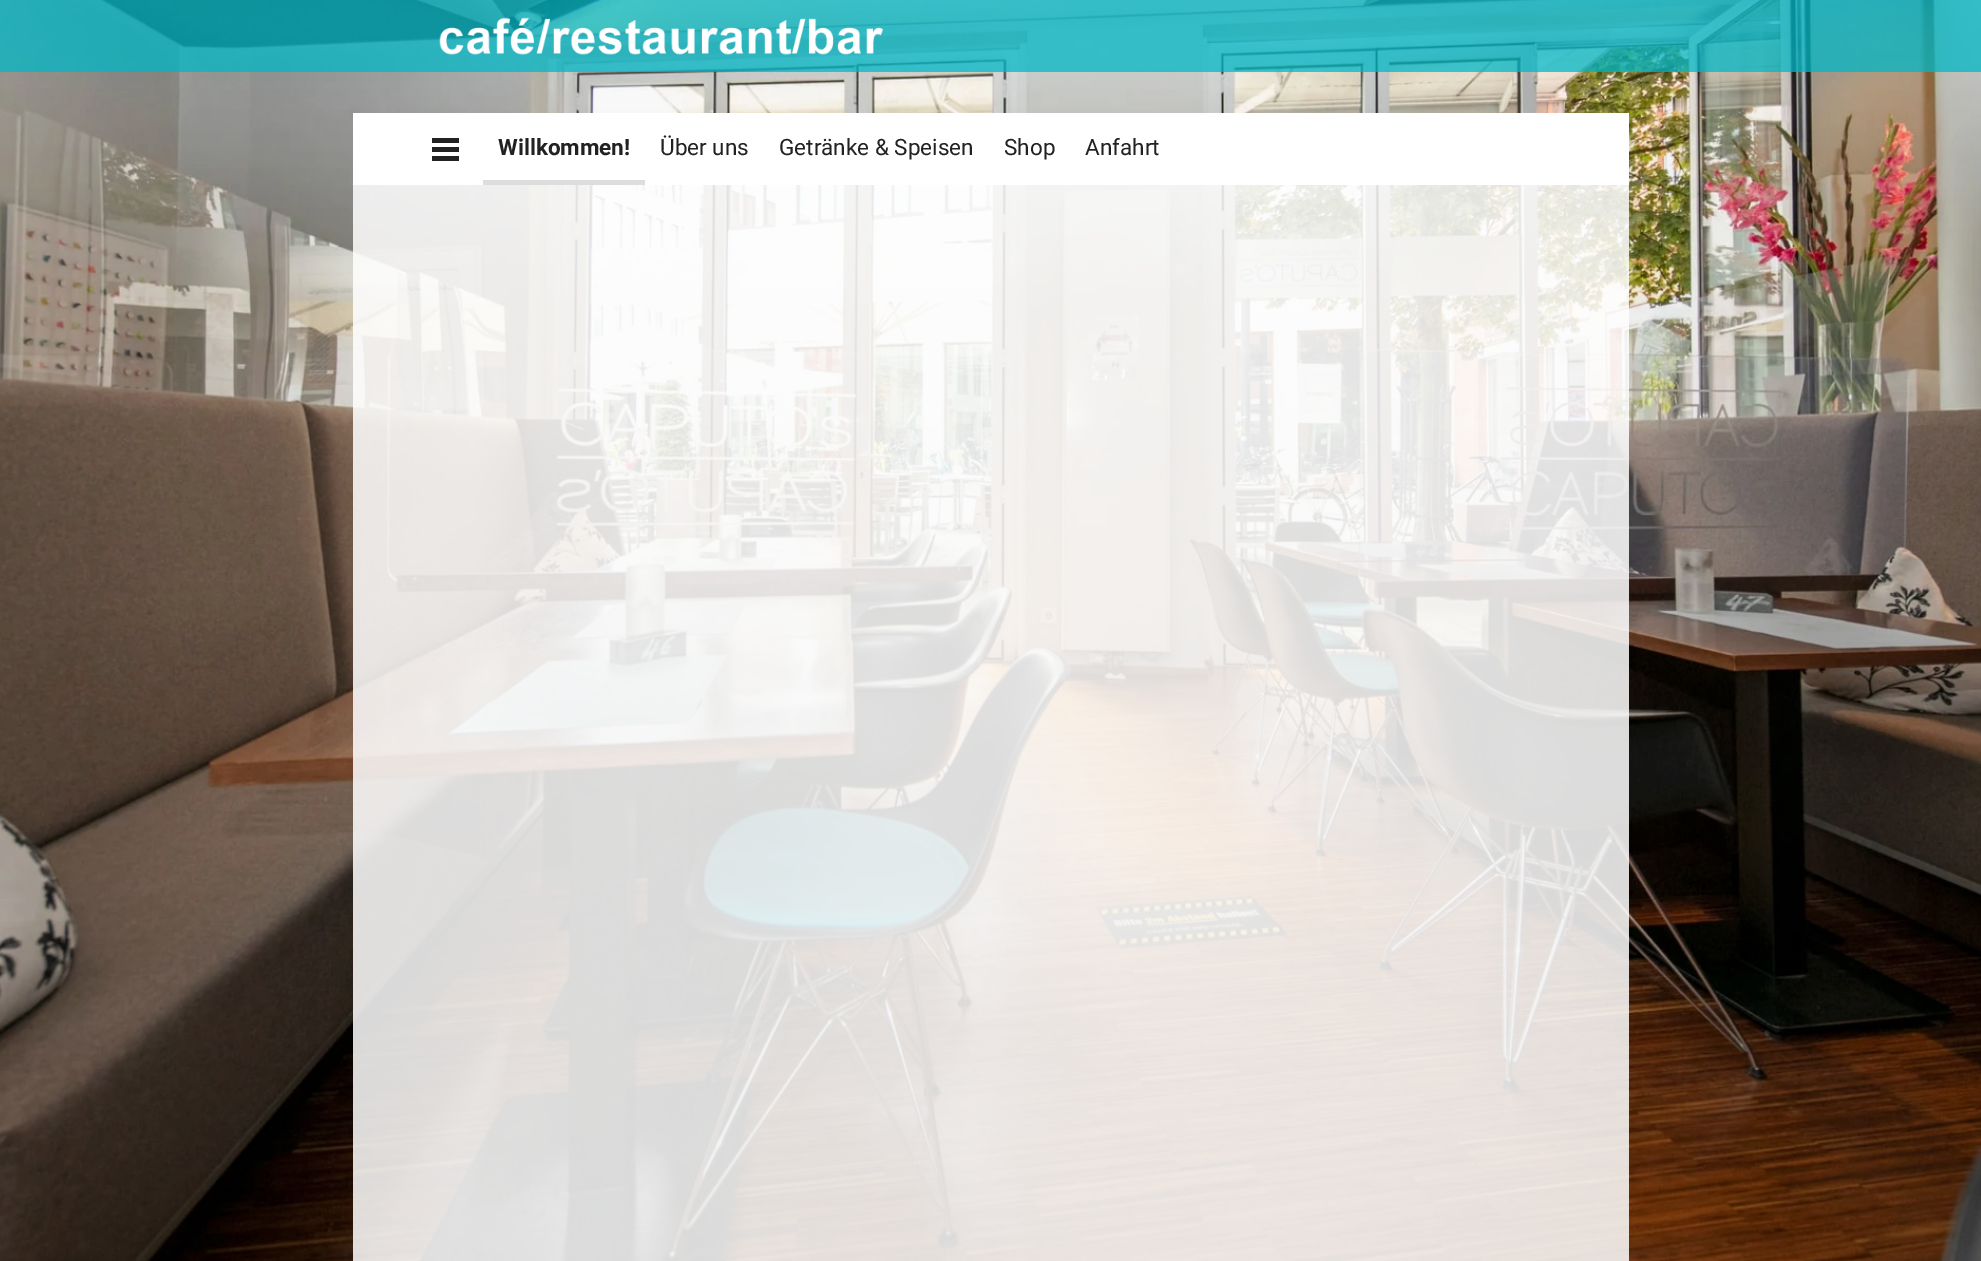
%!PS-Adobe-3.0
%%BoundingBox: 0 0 1981 1261
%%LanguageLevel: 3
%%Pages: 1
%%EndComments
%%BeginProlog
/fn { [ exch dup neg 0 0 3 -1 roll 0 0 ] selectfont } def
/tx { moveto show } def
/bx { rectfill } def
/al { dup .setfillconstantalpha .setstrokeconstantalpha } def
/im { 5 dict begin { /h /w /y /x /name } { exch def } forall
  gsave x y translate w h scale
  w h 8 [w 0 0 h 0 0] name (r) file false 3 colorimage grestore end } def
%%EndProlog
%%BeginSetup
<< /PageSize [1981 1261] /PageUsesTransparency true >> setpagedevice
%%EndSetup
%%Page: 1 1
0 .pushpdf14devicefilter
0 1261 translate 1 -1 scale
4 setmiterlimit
1 setgray
0 0 1981 1261 bx
(image0.raw) 0 0 1981 1261 im
0.74 al
0 0.718 0.776 setrgbcolor
0 0 1981 72 bx
1 al
(image1.raw) 439 17 445 38 im
1 setgray
353 113 1276 72 bx
0.133 setgray
432 138 27 5 bx
432 147 27 5 bx
432 156 27 5 bx
/Roboto-Bold 22.5 fn
(Willkommen!) 498 155 tx
0.867 setgray
483 180 162 5 bx
/Roboto-Regular 22.5 fn
0.133 setgray
(Über uns) 660 155 tx
(Getränke & Speisen) 779 155 tx
(Shop) 1004 155 tx
(Anfahrt) 1085 155 tx
0.85 al
1 setgray
353 185 1276 1076 bx
.poppdf14devicefilter showpage
%%EOF
